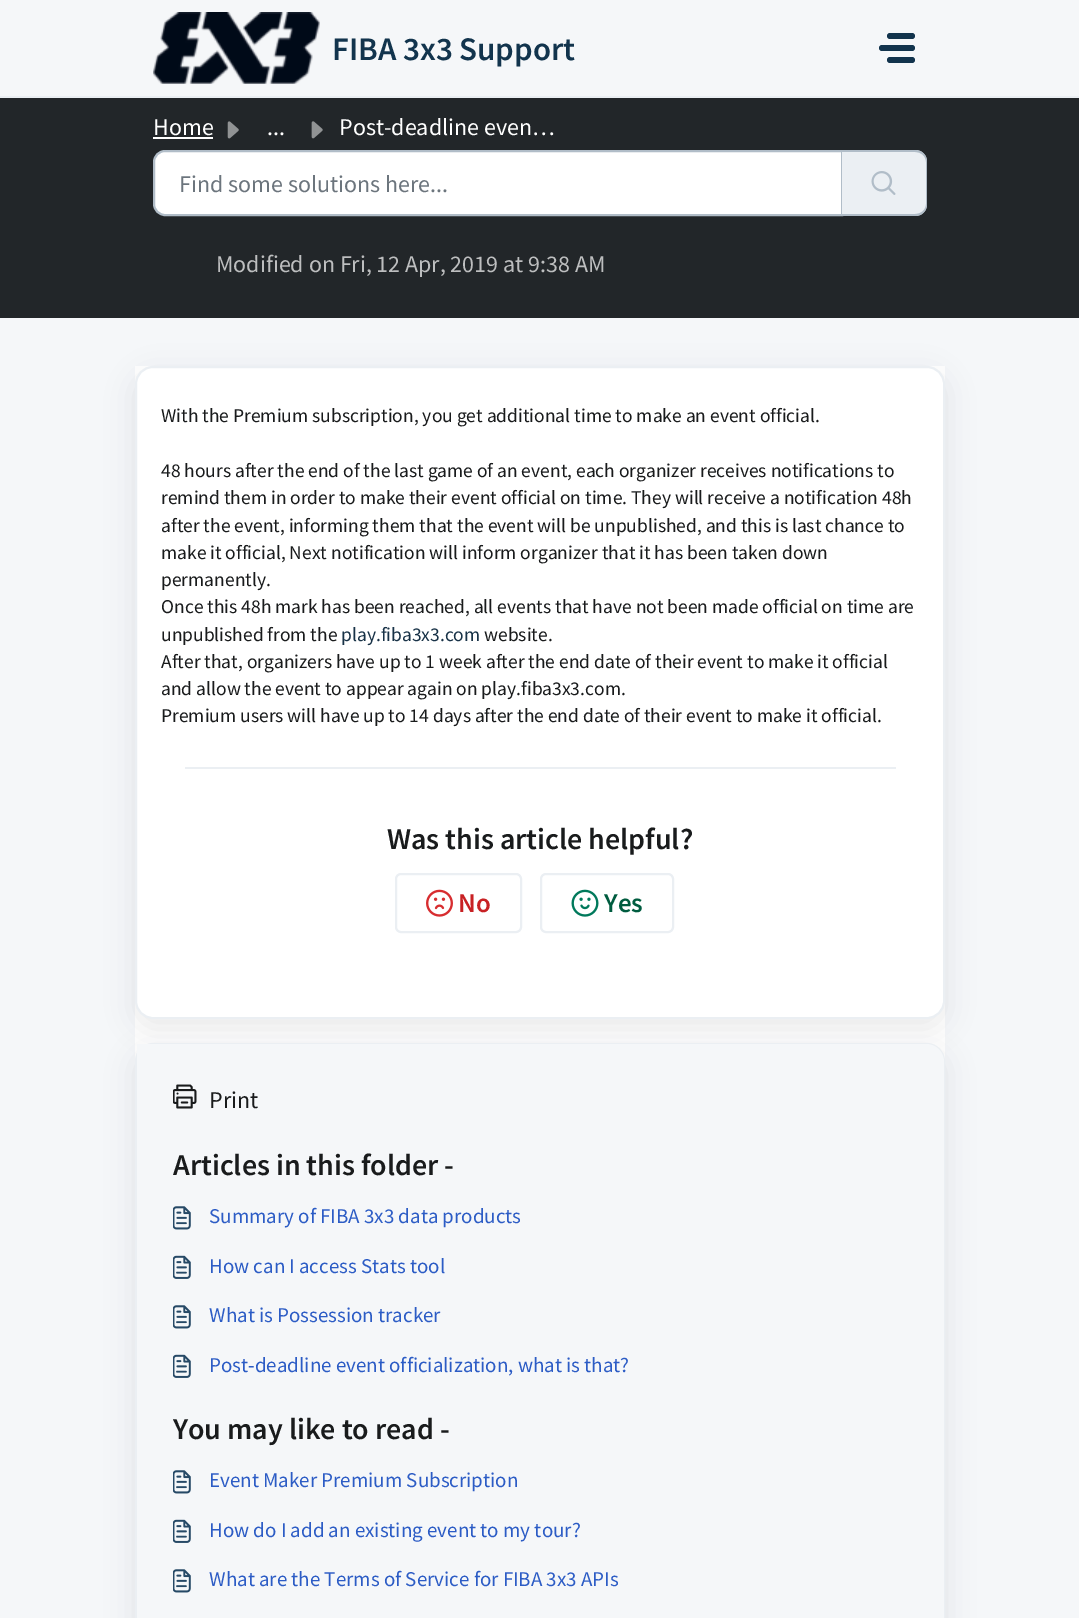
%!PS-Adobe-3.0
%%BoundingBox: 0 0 1079 1618
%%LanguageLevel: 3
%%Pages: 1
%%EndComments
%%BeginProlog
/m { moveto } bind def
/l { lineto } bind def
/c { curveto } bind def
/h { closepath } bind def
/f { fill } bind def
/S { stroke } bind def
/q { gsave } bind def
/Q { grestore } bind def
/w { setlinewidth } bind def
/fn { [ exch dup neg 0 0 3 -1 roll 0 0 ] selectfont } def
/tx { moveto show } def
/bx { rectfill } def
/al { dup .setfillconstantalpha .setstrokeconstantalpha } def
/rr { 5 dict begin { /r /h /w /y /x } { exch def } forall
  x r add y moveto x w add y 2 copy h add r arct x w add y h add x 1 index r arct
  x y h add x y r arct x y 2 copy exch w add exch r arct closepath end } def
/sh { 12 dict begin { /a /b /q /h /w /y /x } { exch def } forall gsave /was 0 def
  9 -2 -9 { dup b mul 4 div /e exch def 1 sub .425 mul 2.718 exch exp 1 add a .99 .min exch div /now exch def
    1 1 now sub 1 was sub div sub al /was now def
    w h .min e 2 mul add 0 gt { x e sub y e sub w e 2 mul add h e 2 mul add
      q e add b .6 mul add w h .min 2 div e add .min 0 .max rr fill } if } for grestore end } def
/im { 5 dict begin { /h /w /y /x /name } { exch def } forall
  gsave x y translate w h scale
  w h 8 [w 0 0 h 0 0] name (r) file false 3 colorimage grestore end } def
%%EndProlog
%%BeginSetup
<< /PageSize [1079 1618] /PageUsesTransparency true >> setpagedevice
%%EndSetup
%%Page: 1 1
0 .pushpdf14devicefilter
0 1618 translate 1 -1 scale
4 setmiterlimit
0.961 0.969 0.976 setrgbcolor
0 0 1079 1618 bx
0.922 0.937 0.953 setrgbcolor
0 96 1079 2 bx
(image0.raw) 153 12 167 72 im
/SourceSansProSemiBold-SemiBold 33 fn
0.071 0.204 0.302 setrgbcolor
(FIBA 3x3 Support) 332 60 tx
887 33 28 6 3 rr f
879 45 36 6 3 rr f
887 57 28 6 3 rr f
0.133 0.149 0.161 setrgbcolor
0 98 1079 220 bx
/SourceSansPro-Regular 24 fn
1 setgray
(Home) 153 135 tx
153 137 60 2 bx
(image1.raw) 227 121 12 18 im
(...) 267 135 tx
(image2.raw) 311 121 12 18 im
(Post-deadline even…) 339 135 tx
165 151 m 842 151 l 842 215 l 165 215 l 159 215 154 210 154 204 c 154 162 l 154 156 159 151 165 151 c h q f Q
0.694 0.741 0.784 setrgbcolor
2 w
S
0.424 0.459 0.49 setrgbcolor
(Find some solutions here...) 179 192 tx
0.922 0.937 0.953 setrgbcolor
842 150 m 915 150 l 921.5 150 927 155.5 927 162 c 927 204 l 927 210.5 921.5 216 915 216 c 842 216 l h f
0.694 0.741 0.784 setrgbcolor
842 150 m 915 150 l 922 150 927 155 927 162 c 927 204 l 927 211 922 216 915 216 c 842 216 l h 842 152 m 915 152 l 921 152 926 156 926 162 c 926 204 l 926 210 921 214 915 214 c 842 214 l h eofill
(image3.raw) 871 171 25 24 im
0.741 0.745 0.749 setrgbcolor
(Modified on Fri, 12 Apr, 2019 at 9:38 AM) 216 272 tx
1 setgray
135 366 810 695 bx
q
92 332 m 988 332 l 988 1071 l 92 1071 l h 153 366 m 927 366 l 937 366 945 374 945 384 c 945 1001 l 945 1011 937 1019 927 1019 c 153 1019 l 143 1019 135 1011 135 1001 c 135 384 l 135 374 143 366 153 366 c h eoclip newpath
0.153 0.192 0.227 setrgbcolor
135 375 810 653 18 14 0.1 sh
Q
0.922 0.937 0.953 setrgbcolor
136 367 808 651 17 rr S
/SourceSansPro-Regular 19.5 fn
0.098 0.106 0.11 setrgbcolor
(With the Premium subscription, you get additional time to make an event official.) 161 422 tx
(48 hours after the end of the last game of an event, each organizer receives notifications to) 161 477 tx
(remind them in order to make their event official on time. They will receive a notification 48h) 161 504 tx
(after the event, informing them that the event will be unpublished, and this is last chance to) 161 532 tx
(make it official, Next notification will inform organizer that it has been taken down) 161 559 tx
(permanently.) 161 586 tx
(Once this 48h mark has been reached, all events that have not been made official on time are) 161 613 tx
(unpublished from the) 161 641 tx
0.094 0.196 0.278 setrgbcolor
(play.fiba3x3.com) 341 641 tx
0.098 0.106 0.11 setrgbcolor
(website.) 484 641 tx
(After that, organizers have up to 1 week after the end date of their event to make it official) 161 668 tx
(and allow the event to appear again on play.fiba3x3.com.) 161 695 tx
(Premium users will have up to 14 days after the end date of their event to make it official.) 161 722 tx
0.922 0.937 0.953 setrgbcolor
185 767 711 2 bx
/SourceSansProSemiBold-SemiBold 30 fn
0.098 0.106 0.11 setrgbcolor
(Was this article helpful?) 387 849 tx
0.922 0.937 0.953 setrgbcolor
396 874 125 58 5 rr S
(image4.raw) 426 889 27 28 im
/SourceSansProSemiBold-SemiBold 27 fn
0.784 0.129 0.141 setrgbcolor
(No) 458 912 tx
0.922 0.937 0.953 setrgbcolor
541 874 132 58 5 rr S
(image5.raw) 571 889 28 28 im
0 0.361 0.247 setrgbcolor
(Yes) 604 912 tx
0.153 0.192 0.227 setrgbcolor
135 1052 810 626 18 14 0.1 sh
0.922 0.937 0.953 setrgbcolor
136 1044 808 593 17 rr S
0.961 0.969 0.976 setrgbcolor
137 1044 m 926 1044 l 936 1044 944 1052 944 1062 c 944 1618 l 944 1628 936 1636 926 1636 c 137 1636 l h f
(image6.raw) 173 1084 24 25 im
/SourceSansPro-Regular 24 fn
0.098 0.106 0.11 setrgbcolor
(Print) 209 1108 tx
/SourceSansProSemiBold-SemiBold 30 fn
(Articles in this folder -) 173 1175 tx
(image7.raw) 173 1206 18 24 im
/SourceSansPro-Regular 21 fn
0.173 0.361 0.773 setrgbcolor
(Summary of FIBA 3x3 data products) 209 1223 tx
(image8.raw) 173 1255 18 24 im
(How can I access Stats tool) 209 1273 tx
(image7.raw) 173 1305 18 24 im
(What is Possession tracker) 209 1322 tx
(image8.raw) 173 1354 18 24 im
(Post-deadline event officialization, what is that?) 209 1372 tx
/SourceSansProSemiBold-SemiBold 30 fn
0.098 0.106 0.11 setrgbcolor
(You may like to read -) 173 1439 tx
(image7.raw) 173 1470 18 24 im
/SourceSansPro-Regular 21 fn
0.173 0.361 0.773 setrgbcolor
(Event Maker Premium Subscription) 209 1487 tx
(image8.raw) 173 1519 18 24 im
(How do I add an existing event to my tour?) 209 1537 tx
(image7.raw) 173 1569 18 24 im
(What are the Terms of Service for FIBA 3x3 APIs) 209 1586 tx
.poppdf14devicefilter showpage
%%EOF
